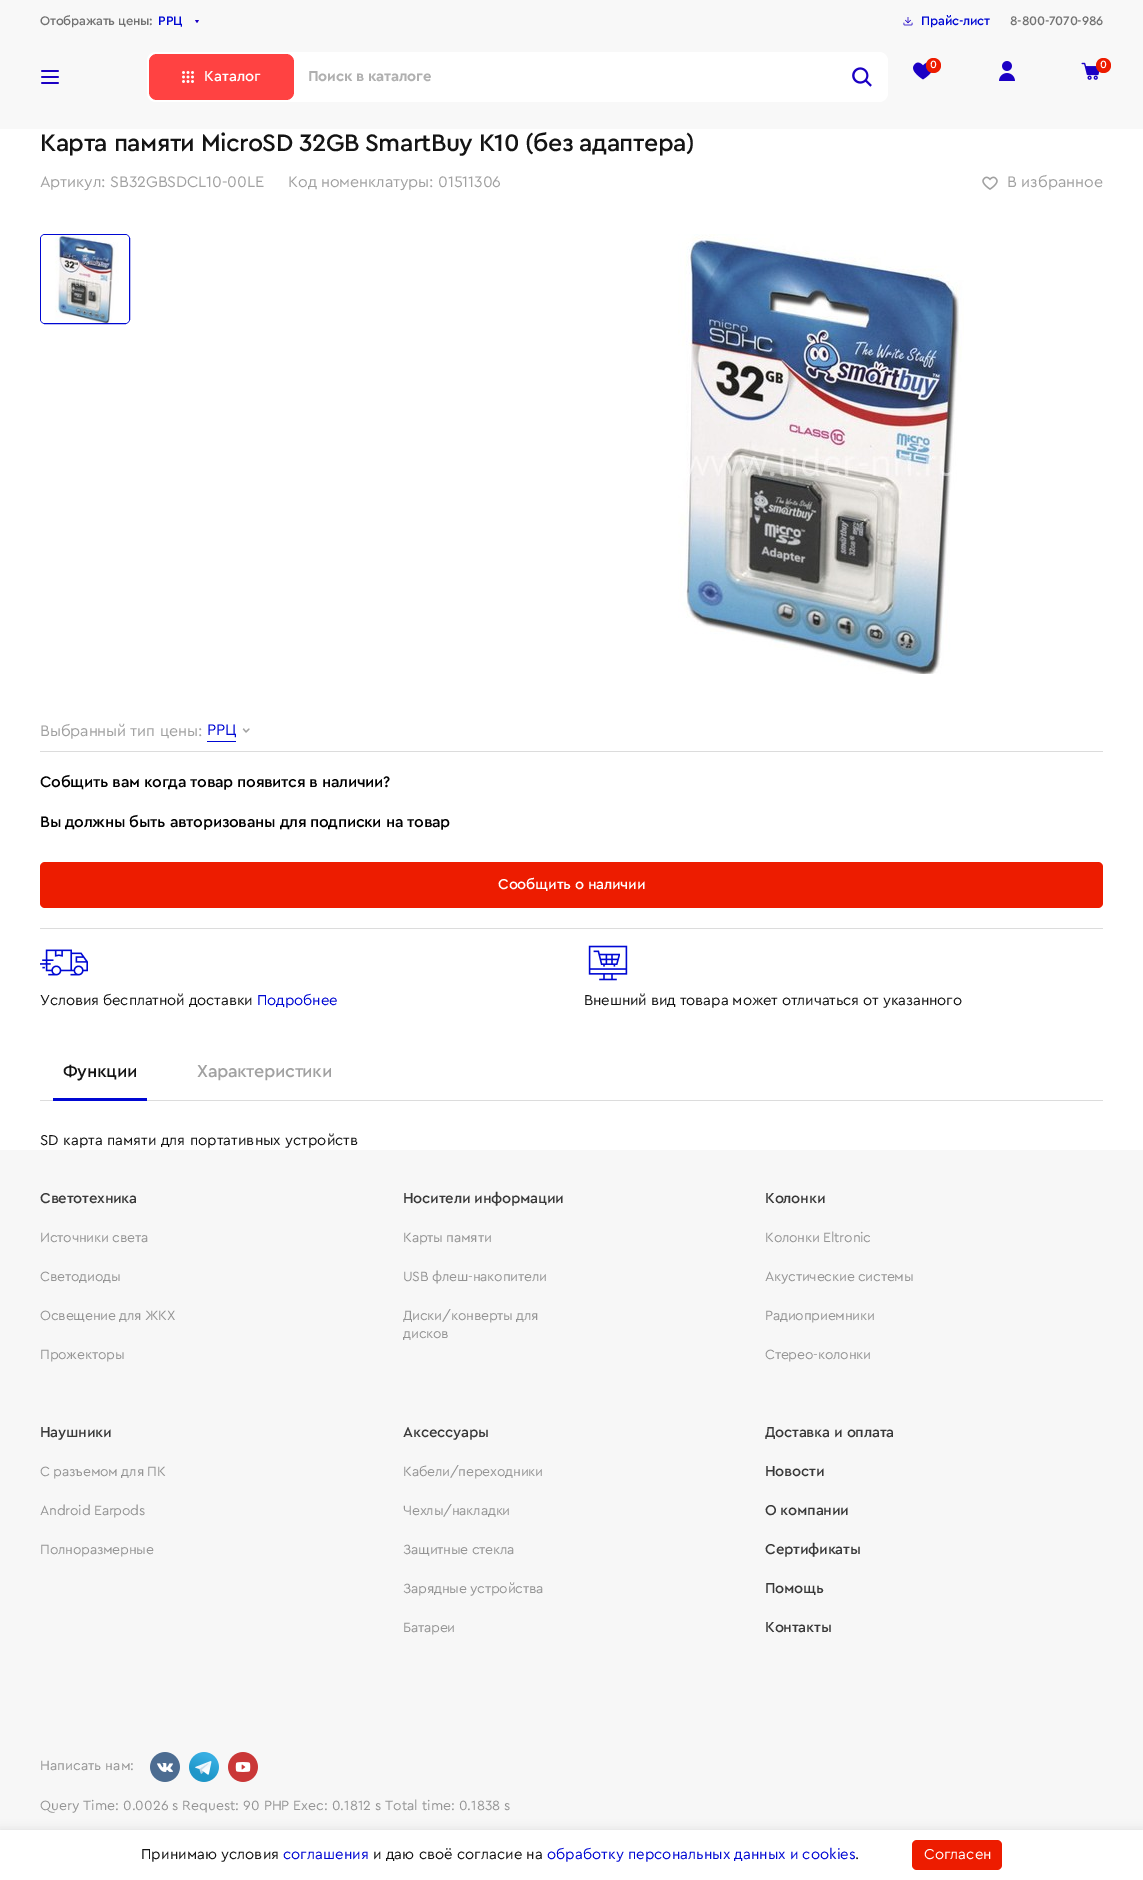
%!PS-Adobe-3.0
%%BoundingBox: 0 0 1143 1880
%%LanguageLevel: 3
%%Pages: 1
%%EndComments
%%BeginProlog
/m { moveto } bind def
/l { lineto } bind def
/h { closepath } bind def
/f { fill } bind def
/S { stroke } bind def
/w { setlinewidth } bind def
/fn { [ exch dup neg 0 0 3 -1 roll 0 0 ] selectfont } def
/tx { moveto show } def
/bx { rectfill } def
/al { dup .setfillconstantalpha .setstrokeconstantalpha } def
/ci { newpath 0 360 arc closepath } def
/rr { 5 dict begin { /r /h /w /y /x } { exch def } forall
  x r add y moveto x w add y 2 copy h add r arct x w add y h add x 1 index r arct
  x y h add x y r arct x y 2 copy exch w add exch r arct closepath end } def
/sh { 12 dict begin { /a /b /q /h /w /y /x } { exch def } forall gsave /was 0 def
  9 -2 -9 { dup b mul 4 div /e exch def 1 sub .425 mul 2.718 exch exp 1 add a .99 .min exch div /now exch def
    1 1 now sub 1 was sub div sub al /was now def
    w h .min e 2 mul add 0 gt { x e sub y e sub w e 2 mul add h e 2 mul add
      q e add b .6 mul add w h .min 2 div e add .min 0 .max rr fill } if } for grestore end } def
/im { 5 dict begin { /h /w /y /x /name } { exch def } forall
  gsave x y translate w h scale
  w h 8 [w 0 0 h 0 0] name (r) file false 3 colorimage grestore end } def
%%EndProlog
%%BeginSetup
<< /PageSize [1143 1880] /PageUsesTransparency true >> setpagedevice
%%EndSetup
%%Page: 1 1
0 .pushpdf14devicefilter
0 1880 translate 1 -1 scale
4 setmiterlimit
1 setgray
0 0 1143 1880 bx
0.973 setgray
0 0 1143 42 bx
/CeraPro-Medium 13 fn
0.447 setgray
40 25 m -0.25 0 (Отображать цены:) ashow
0 0.031 0.827 setrgbcolor
(РРЦ) 158 25 tx
0.106 0 0.769 setrgbcolor
197 23 m 195 20 l 199 20 l h f
(image0.raw) 903 17 10 9 im
0 0.031 0.827 setrgbcolor
921 25 m -0.25 0 (Прайс-лист) ashow
0.447 setgray
1010 25 m -0.25 0 (8-800-7070-986) ashow
0.973 setgray
0 42 1143 87 bx
(image1.raw) 913 62 19 18 im
0.929 0.11 0 setrgbcolor
933.5 65.5 7.5 ci f
/CeraPro-Medium 11 fn
1 setgray
(0) 930 68 tx
(image2.raw) 999 61 16 20 im
(image3.raw) 1081 62 19 18 im
0.929 0.11 0 setrgbcolor
1103.5 65.5 7.5 ci f
1 setgray
(0) 1100 68 tx
(image4.raw) 41 70 18 14 im
147 52 741 50 9 rr f
1 0.259 0.259 setrgbcolor
149 54 145 46 8 rr f
(image5.raw) 182 71 12 12 im
/CeraPro-Medium 15 fn
1 setgray
(Каталог) 204 81 tx
/CeraPro-Bold 15 fn
0.69 setgray
308 81 m -0.25 0 (Поиск в каталоге) ashow
(image6.raw) 852 67 20 20 im
/CeraPro-Medium 25 fn
0.078 setgray
40 151 m -0.6 0 (Карта памяти MicroSD 32GB SmartBuy К10 \(без адаптера\)) ashow
/CeraPro-Regular 16 fn
0.631 setgray
40 187 m -0.15 0 (Артикул: SB32GBSDCL10-00LE) ashow
288 187 m -0.15 0 (Код номенклатуры: 01511306) ashow
(image7.raw) 982 176 16 14 im
(В избранное) 1007 187 tx
0 0.031 0.827 setrgbcolor
40.5 234.5 89 89 4.5 rr S
(image8.raw) 41 235 88 88 im
(image9.raw) 678 234 286 440 im
0.631 setgray
40 736 m -0.15 0 (Выбранный тип цены:) ashow
0 0.031 0.827 setrgbcolor
207 741 29 1 bx
207 735 m -0.15 0 (РРЦ) ashow
0.631 setgray
1.2 w
1 setlinecap
1 setlinejoin
243.5 729 m 246 732 l 249 729 l S
0.863 setgray
40 751 1063 1 bx
40 928 1063 1 bx
/CeraPro-Medium 16 fn
0 setgray
40 787 m -0.3 0 (Собщить вам когда товар появится в наличии?) ashow
40 827 m -0.3 0 (Вы должны быть авторизованы для подписки на товар) ashow
0.929 0.11 0 setrgbcolor
40 862 1063 46 5 rr f
/CeraPro-Medium 15 fn
1 setgray
498 889 m -0.25 0 (Сообщить о наличии) ashow
(image10.raw) 40 949 48 27 im
/CeraPro-Regular 15 fn
0.078 setgray
40 1005 m -0.15 0 (Условия бесплатной доставки) ashow
0 0.031 0.827 setrgbcolor
257 1005 m -0.15 0 (Подробнее) ashow
(image11.raw) 588 945 40 36 im
0.078 setgray
584 1005 m -0.15 0 (Внешний вид товара может отличаться от указанного) ashow
0.863 setgray
40 1100 1063 1 bx
0 0.031 0.827 setrgbcolor
53 1098 94 3 bx
/CeraPro-Medium 18 fn
0.078 setgray
63 1077 m -0.4 0 (Функции) ashow
0.631 setgray
197 1077 m -0.4 0 (Характеристики) ashow
/CeraPro-Regular 15 fn
0.078 setgray
(SD карта памяти для портативных устройств) 40 1145 tx
0.969 setgray
0 1150 1143 680 bx
/CeraPro-Medium 15 fn
0.224 setgray
40 1203 m -0.25 0 (Светотехника) ashow
/CeraPro-Regular 14 fn
0.58 setgray
40 1242 m -0.25 0 (Источники света) ashow
40 1281 m -0.25 0 (Светодиоды) ashow
40 1320 m -0.25 0 (Освещение для ЖКХ) ashow
40 1359 m -0.25 0 (Прожекторы) ashow
/CeraPro-Medium 15 fn
0.224 setgray
403 1203 m -0.25 0 (Носители информации) ashow
/CeraPro-Regular 14 fn
0.58 setgray
403 1242 m -0.25 0 (Карты памяти) ashow
403 1281 m -0.25 0 (USB флеш-накопители) ashow
403 1320 m -0.25 0 (Диски/конверты для) ashow
403 1338 m -0.25 0 (дисков) ashow
/CeraPro-Medium 15 fn
0.224 setgray
765 1203 m -0.25 0 (Колонки) ashow
/CeraPro-Regular 14 fn
0.58 setgray
765 1242 m -0.25 0 (Колонки Eltronic) ashow
765 1281 m -0.25 0 (Акустические системы) ashow
765 1320 m -0.25 0 (Радиоприемники) ashow
765 1359 m -0.25 0 (Стерео-колонки) ashow
/CeraPro-Medium 15 fn
0.224 setgray
40 1437 m -0.25 0 (Наушники) ashow
/CeraPro-Regular 14 fn
0.58 setgray
40 1476 m -0.25 0 (С разъемом для ПК) ashow
40 1515 m -0.25 0 (Android Earpods) ashow
40 1554 m -0.25 0 (Полноразмерные) ashow
/CeraPro-Medium 15 fn
0.224 setgray
403 1437 m -0.25 0 (Аксессуары) ashow
/CeraPro-Regular 14 fn
0.58 setgray
403 1476 m -0.25 0 (Кабели/переходники) ashow
403 1515 m -0.25 0 (Чехлы/накладки) ashow
403 1554 m -0.25 0 (Защитные стекла) ashow
403 1593 m -0.25 0 (Зарядные устройства) ashow
403 1632 m -0.25 0 (Батареи) ashow
/CeraPro-Medium 15 fn
0.224 setgray
765 1437 m -0.25 0 (Доставка и оплата) ashow
765 1476 m -0.25 0 (Новости) ashow
765 1515 m -0.25 0 (О компании) ashow
765 1554 m -0.25 0 (Сертификаты) ashow
765 1593 m -0.25 0 (Помощь) ashow
765 1632 m -0.25 0 (Контакты) ashow
/CeraPro-Regular 14 fn
0.58 setgray
(Написать нам:) 40 1770 tx
(image12.raw) 150 1752 30 30 im
(image13.raw) 189 1752 30 30 im
(image14.raw) 228 1752 30 30 im
(Query Time: 0.0026 s Request: 90 PHP Exec: 0.1812 s Total time: 0.1838 s) 40 1810 tx
0 setgray
0 1830 1143 50 0 5 0.1 sh
1 setgray
0 1830 1143 50 bx
/CeraPro-Regular 15 fn
0.078 setgray
(Принимаю условия) 141 1859 tx
0 0.031 0.827 setrgbcolor
(соглашения) 283 1859 tx
0.078 setgray
(и даю своё согласие на) 373 1859 tx
0 0.031 0.827 setrgbcolor
(обработку персональных данных и cookies) 547 1859 tx
0.078 setgray
(.) 855 1859 tx
0.929 0.11 0 setrgbcolor
912 1840 90 30 5 rr f
1 setgray
(Согласен) 924 1859 tx
.poppdf14devicefilter showpage
%%EOF
